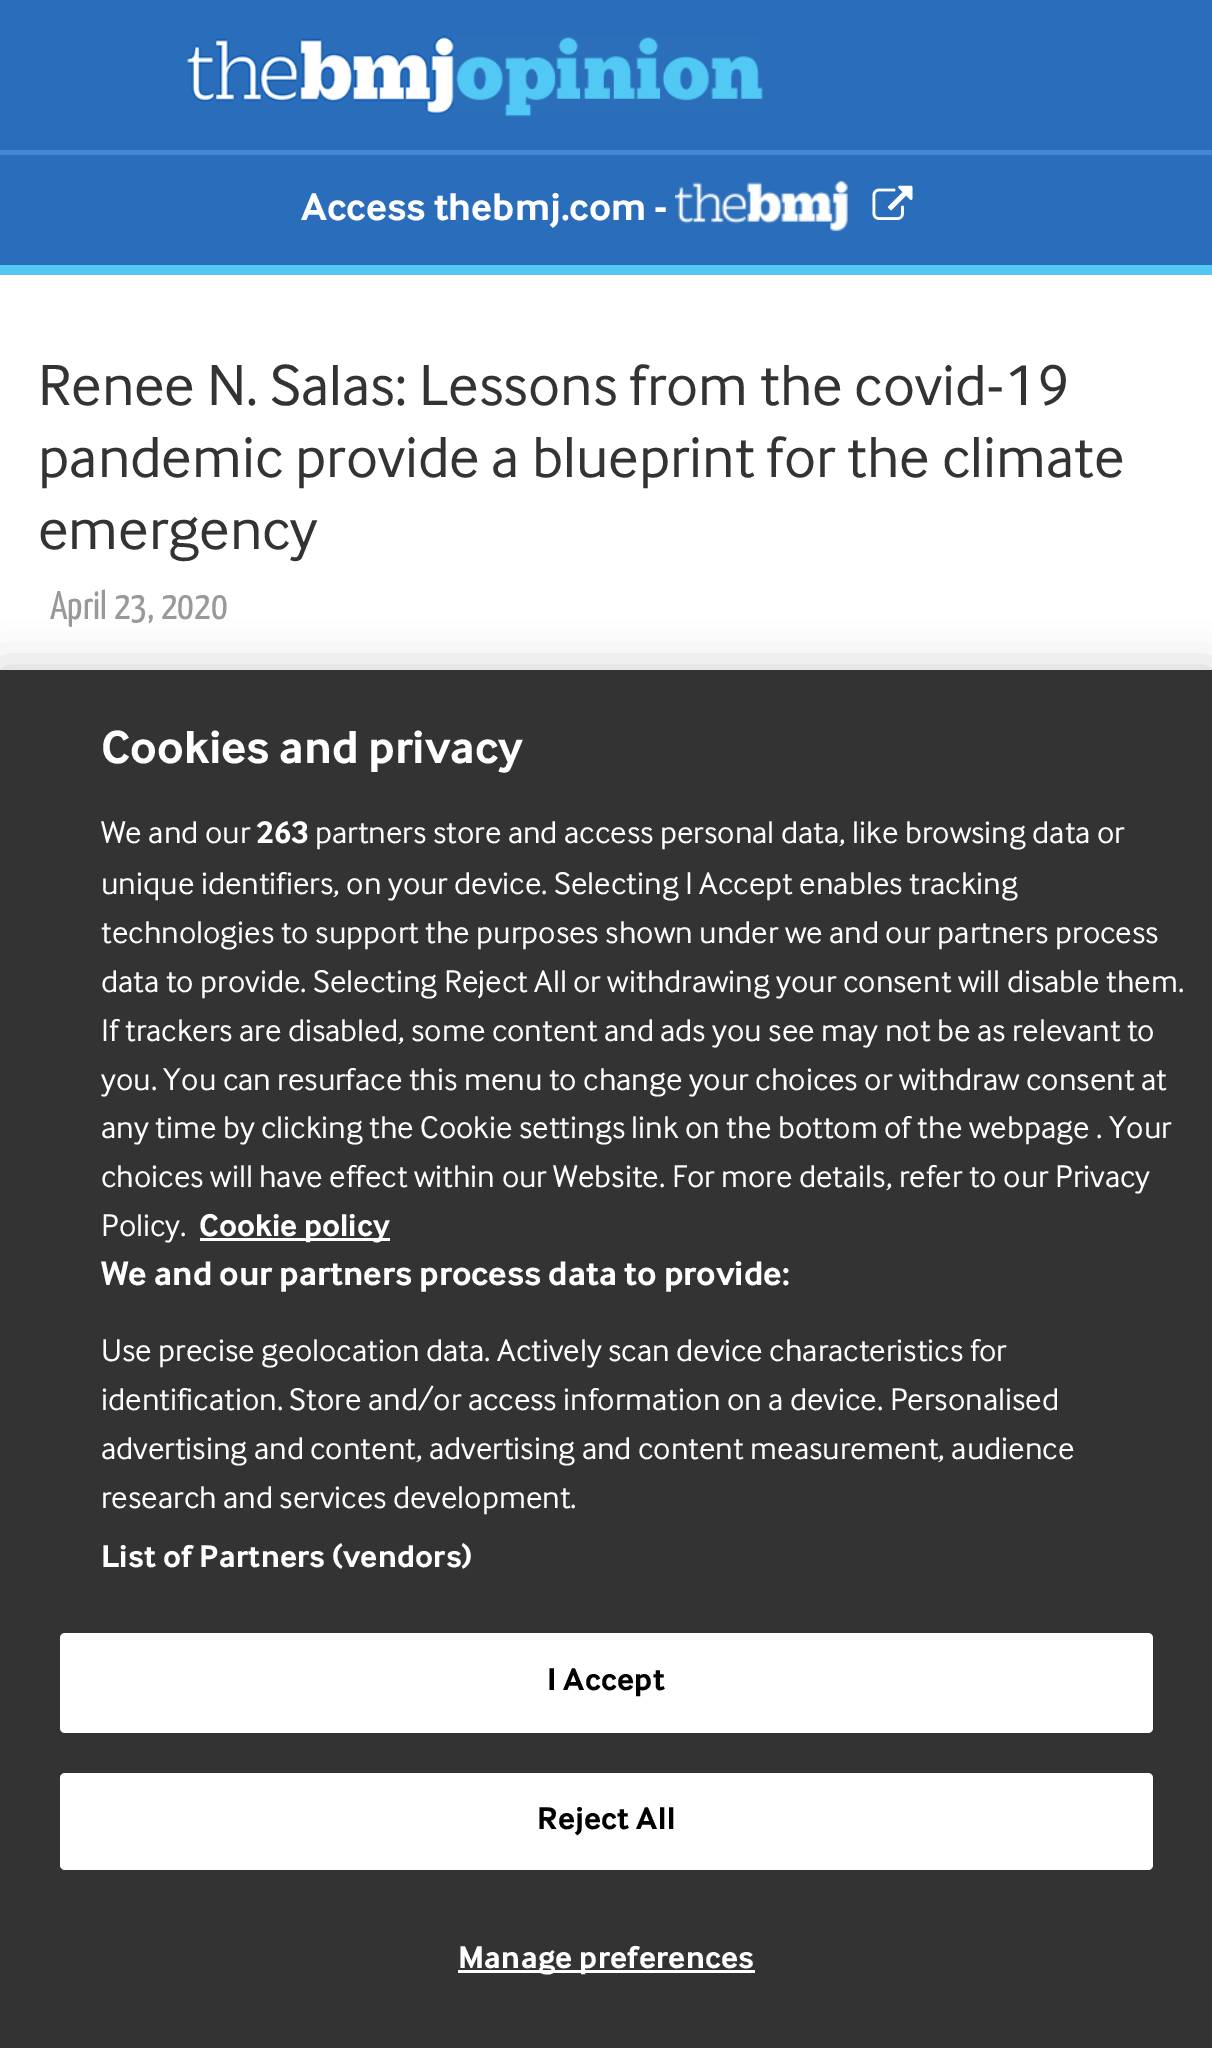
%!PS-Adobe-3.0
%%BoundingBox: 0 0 1212 2048
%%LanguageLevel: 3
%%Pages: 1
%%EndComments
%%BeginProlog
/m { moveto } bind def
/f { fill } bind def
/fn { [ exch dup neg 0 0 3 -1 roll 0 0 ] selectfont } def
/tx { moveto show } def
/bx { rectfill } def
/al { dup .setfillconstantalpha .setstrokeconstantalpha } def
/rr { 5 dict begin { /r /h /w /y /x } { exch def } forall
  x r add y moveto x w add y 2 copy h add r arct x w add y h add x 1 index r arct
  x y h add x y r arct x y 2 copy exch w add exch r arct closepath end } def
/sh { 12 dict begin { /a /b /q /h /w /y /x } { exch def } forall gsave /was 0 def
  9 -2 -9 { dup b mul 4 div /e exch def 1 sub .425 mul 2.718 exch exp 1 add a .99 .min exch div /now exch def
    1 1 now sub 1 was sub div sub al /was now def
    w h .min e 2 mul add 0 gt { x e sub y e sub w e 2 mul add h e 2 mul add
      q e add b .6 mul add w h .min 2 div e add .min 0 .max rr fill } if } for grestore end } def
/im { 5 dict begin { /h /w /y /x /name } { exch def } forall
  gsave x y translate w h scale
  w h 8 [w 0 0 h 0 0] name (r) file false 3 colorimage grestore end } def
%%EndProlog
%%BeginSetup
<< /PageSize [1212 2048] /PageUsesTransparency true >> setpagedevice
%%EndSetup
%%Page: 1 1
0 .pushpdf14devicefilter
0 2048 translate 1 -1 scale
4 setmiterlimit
1 setgray
0 0 1212 2048 bx
0.165 0.431 0.733 setrgbcolor
0 0 1212 150 bx
(image0.raw) 187 36 576 81 im
0 155 1212 110 bx
0.263 0.529 0.835 setrgbcolor
0 150 1212 5 bx
0.322 0.788 0.961 setrgbcolor
0 265 1212 10 bx
/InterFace-Bold 40 fn
1 setgray
(Access thebmj.com -) 301 220 tx
(image1.raw) 675 181 173 51 im
(image2.raw) 872 185 41 35 im
/InterFace-Regular 60 fn
0.2 setgray
(Renee N. Salas: Lessons from the covid-19) 38 405 tx
(pandemic provide a blueprint for the climate) 38 477 tx
(emergency) 38 549 tx
/YanoneKaffeesatz-Regular 40 fn
0.6 setgray
(April 23, 2020) 50 619 tx
0 setgray
0 670 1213 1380 0 22.5 0.2 sh
0.2 setgray
0 670 1212 1378 bx
/InterFace-Bold 48 fn
1 setgray
(Cookies and privacy) 101 763 tx
/InterFace-Regular 32.5 fn
(We and our) 101 843 tx
/InterFace-Bold 32.5 fn
(263) 256 843 tx
/InterFace-Regular 32.5 fn
(partners store and access personal data, like browsing data or) 315 843 tx
(unique identifiers, on your device. Selecting I Accept enables tracking) 101 894 tx
(technologies to support the purposes shown under we and our partners process) 101 943 tx
(data to provide. Selecting Reject All or withdrawing your consent will disable them.) 101 992 tx
(If trackers are disabled, some content and ads you see may not be as relevant to) 101 1041 tx
(you. You can resurface this menu to change your choices or withdraw consent at) 101 1090 tx
(any time by clicking the Cookie settings link on the bottom of the webpage . Your) 101 1138 tx
(choices will have effect within our Website. For more details, refer to our Privacy) 101 1187 tx
(Policy.) 101 1236 tx
200 1238 190 3 bx
/InterFace-Bold 32.5 fn
(Cookie policy) 199 1236 tx
/InterFace-Bold 35.25 fn
(We and our partners process data to provide:) 101 1285 tx
/InterFace-Regular 32.5 fn
(Use precise geolocation data. Actively scan device characteristics for) 101 1361 tx
(identification. Store and/or access information on a device. Personalised) 101 1410 tx
(advertising and content, advertising and content measurement, audience) 101 1459 tx
(research and services development.) 101 1508 tx
/InterFace-Bold 32.5 fn
101 1567 m 0.3 0 (List of Partners \(vendors\)) ashow
60 1633 1093 100 5 rr f
0 setgray
547 1690 m 0.3 0 (I Accept) ashow
1 setgray
60 1773 1093 97 5 rr f
0 setgray
537 1829 m 0.3 0 (Reject All) ashow
1 setgray
458 1970 297 3 bx
458 1968 m 0.3 0 (Manage preferences) ashow
.poppdf14devicefilter showpage
%%EOF
